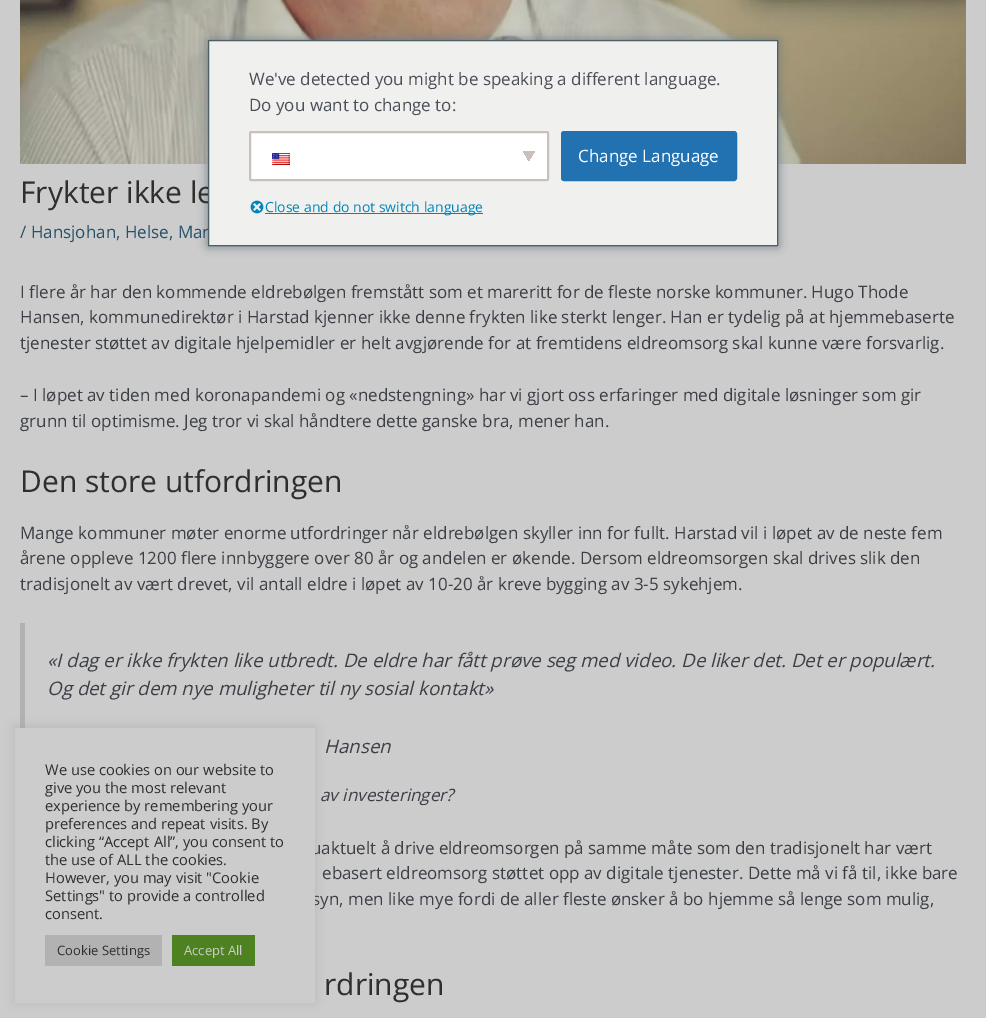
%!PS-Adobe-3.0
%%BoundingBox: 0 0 986 1018
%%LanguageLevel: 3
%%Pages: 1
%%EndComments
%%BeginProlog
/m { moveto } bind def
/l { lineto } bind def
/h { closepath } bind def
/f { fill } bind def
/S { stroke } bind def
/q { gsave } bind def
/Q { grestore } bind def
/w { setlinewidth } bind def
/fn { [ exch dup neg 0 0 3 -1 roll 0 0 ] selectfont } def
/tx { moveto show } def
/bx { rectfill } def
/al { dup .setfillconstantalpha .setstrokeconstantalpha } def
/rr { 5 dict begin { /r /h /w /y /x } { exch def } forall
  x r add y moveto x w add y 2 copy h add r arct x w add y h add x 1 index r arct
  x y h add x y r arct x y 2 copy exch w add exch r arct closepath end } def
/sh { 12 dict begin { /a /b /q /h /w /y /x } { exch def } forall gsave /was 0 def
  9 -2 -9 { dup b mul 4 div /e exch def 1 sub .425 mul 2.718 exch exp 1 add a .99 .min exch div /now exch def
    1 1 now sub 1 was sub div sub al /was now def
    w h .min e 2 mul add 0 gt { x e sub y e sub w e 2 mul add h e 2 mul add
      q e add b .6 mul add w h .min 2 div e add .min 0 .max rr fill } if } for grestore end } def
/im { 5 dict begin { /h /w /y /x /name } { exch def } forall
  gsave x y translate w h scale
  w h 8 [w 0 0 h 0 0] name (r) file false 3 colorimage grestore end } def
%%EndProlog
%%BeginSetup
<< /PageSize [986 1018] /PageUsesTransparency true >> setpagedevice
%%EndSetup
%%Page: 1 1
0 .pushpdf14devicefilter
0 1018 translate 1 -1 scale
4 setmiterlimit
0.8 setgray
0 0 986 1018 bx
(image2.raw) 20 0 946 164 im
0.424 0.467 0.506 setrgbcolor
208 40 570 206 0 5 1 sh
/OpenSans-Regular 30 fn
0.18 setgray
(Frykter ikke le) 20 203 tx
/OpenSans-Regular 17 fn
0.145 0.318 0.412 setrgbcolor
(/ Hansjohan, Helse, Mar) 20 238 tx
0.941 0.941 0.933 setrgbcolor
208.5 40.5 m 777.5 40.5 l 777.5 245.5 l 208.5 245.5 l h q f Q
0.298 0.376 0.4 setrgbcolor
S
0.294 0.31 0.345 setrgbcolor
(We've detected you might be speaking a different language.) 249 85 tx
(Do you want to change to:) 249 111 tx
1 setgray
249 131 300 50 2 rr f
q 529 151 m 535 151 l 535 163 l 529 163 l h clip newpath
<< /ShadingType 2 /ColorSpace /DeviceRGB /Coords [527 154 537 160] /Extend [true true] /Function << /FunctionType 3 /Domain [0 1] /Functions [<< /FunctionType 2 /Domain [0 1] /C0 [0.788 0.753 0.733] /C1 [0.788 0.753 0.733] /N 1 >> << /FunctionType 2 /Domain [0 1] /C0 [1 1 1] /C1 [1 1 1] /N 1 >>] /Bounds [0.5] /Encode [0 1 0 1] >> >> shfill Q
q 523 151 m 529 151 l 529 163 l 523 163 l h clip newpath
<< /ShadingType 2 /ColorSpace /DeviceRGB /Coords [521 160 531 154] /Extend [true true] /Function << /FunctionType 3 /Domain [0 1] /Functions [<< /FunctionType 2 /Domain [0 1] /C0 [1 1 1] /C1 [1 1 1] /N 1 >> << /FunctionType 2 /Domain [0 1] /C0 [0.788 0.753 0.733] /C1 [0.788 0.753 0.733] /N 1 >>] /Bounds [0.5] /Encode [0 1 0 1] >> >> shfill Q
0.788 0.753 0.733 setrgbcolor
2 w
250 132 298 48 1 rr S
(image0.raw) 272 153 18 12 im
0.133 0.443 0.694 setrgbcolor
561.5 131.5 175 49 2.5 rr q f Q
1 w
S
1 setgray
(Change Language) 578 162 tx
(image1.raw) 250 200 14 14 im
0 0.522 0.729 setrgbcolor
265 213 218 1 bx
/OpenSans-Regular 14 fn
(Close and do not switch language) 265 212 tx
/OpenSans-Regular 17 fn
0.235 0.247 0.275 setrgbcolor
(I flere år har den kommende eldrebølgen fremstått som et mareritt for de fleste norske kommuner. Hugo Thode) 20 298 tx
(Hansen, kommunedirektør i Harstad kjenner ikke denne frykten like sterkt lenger. Han er tydelig på at hjemmebaserte) 20 323 tx
(tjenester støttet av digitale hjelpemidler er helt avgjørende for at fremtidens eldreomsorg skal kunne være forsvarlig.) 20 349 tx
(– I løpet av tiden med koronapandemi og «nedstengning» har vi gjort oss erfaringer med digitale løsninger som gir) 20 401 tx
(grunn til optimisme. Jeg tror vi skal håndtere dette ganske bra, mener han.) 20 427 tx
/OpenSans-Regular 30 fn
0.18 setgray
(Den store utfordringen) 20 492 tx
/OpenSans-Regular 17 fn
0.235 0.247 0.275 setrgbcolor
(Mange kommuner møter enorme utfordringer når eldrebølgen skyller inn for fullt. Harstad vil i løpet av de neste fem) 20 539 tx
(årene oppleve 1200 flere innbyggere over 80 år og andelen er økende. Dersom eldreomsorgen skal drives slik den) 20 564 tx
(tradisjonelt av vært drevet, vil antall eldre i løpet av 10-20 år kreve bygging av 3-5 sykehjem.) 20 590 tx
0.694 setgray
20 623 5 105 bx
/OpenSans-Italic 18.7 fn
0.235 0.247 0.275 setrgbcolor
(«I dag er ikke frykten like utbredt. De eldre har fått prøve seg med video. De liker det. Det er populært.) 47 667 tx
(Og det gir dem nye muligheter til ny sosial kontakt») 47 695 tx
(Hansen) 324 753 tx
/OpenSans-Italic 17 fn
(av investeringer?) 320 801 tx
/OpenSans-Regular 17 fn
(uaktuelt å drive eldreomsorgen på samme måte som den tradisjonelt har vært) 311 854 tx
(ebasert eldreomsorg støttet opp av digitale tjenester. Dette må vi få til, ikke bare) 322 879 tx
(syn, men like mye fordi de aller fleste ønsker å bo hjemme så lenge som mulig,) 312 905 tx
/OpenSans-Regular 30 fn
0.18 setgray
(rdringen) 324 995 tx
0.541 0.537 0.537 setrgbcolor
15 727 300 275 0 5 0.3 sh
0.8 setgray
15 728 300 275 bx
/OpenSans-Regular 14.7 fn
0.18 setgray
(We use cookies on our website to) 45 775 tx
(give you the most relevant) 45 793 tx
(experience by remembering your) 45 811 tx
(preferences and repeat visits. By) 45 829 tx
(clicking “Accept All”, you consent to) 45 847 tx
(the use of ALL the cookies.) 45 865 tx
(However, you may visit "Cookie) 45 883 tx
(Settings" to provide a controlled) 45 901 tx
(consent.) 45 919 tx
0.698 0.698 0.702 setrgbcolor
45 935 117 31 bx
/OpenSans-Regular 13 fn
0.18 setgray
(Cookie Settings) 57 955 tx
0.306 0.51 0.129 setrgbcolor
172 935 83 31 bx
0.8 setgray
(Accept All) 184 955 tx
.poppdf14devicefilter showpage
%%EOF
